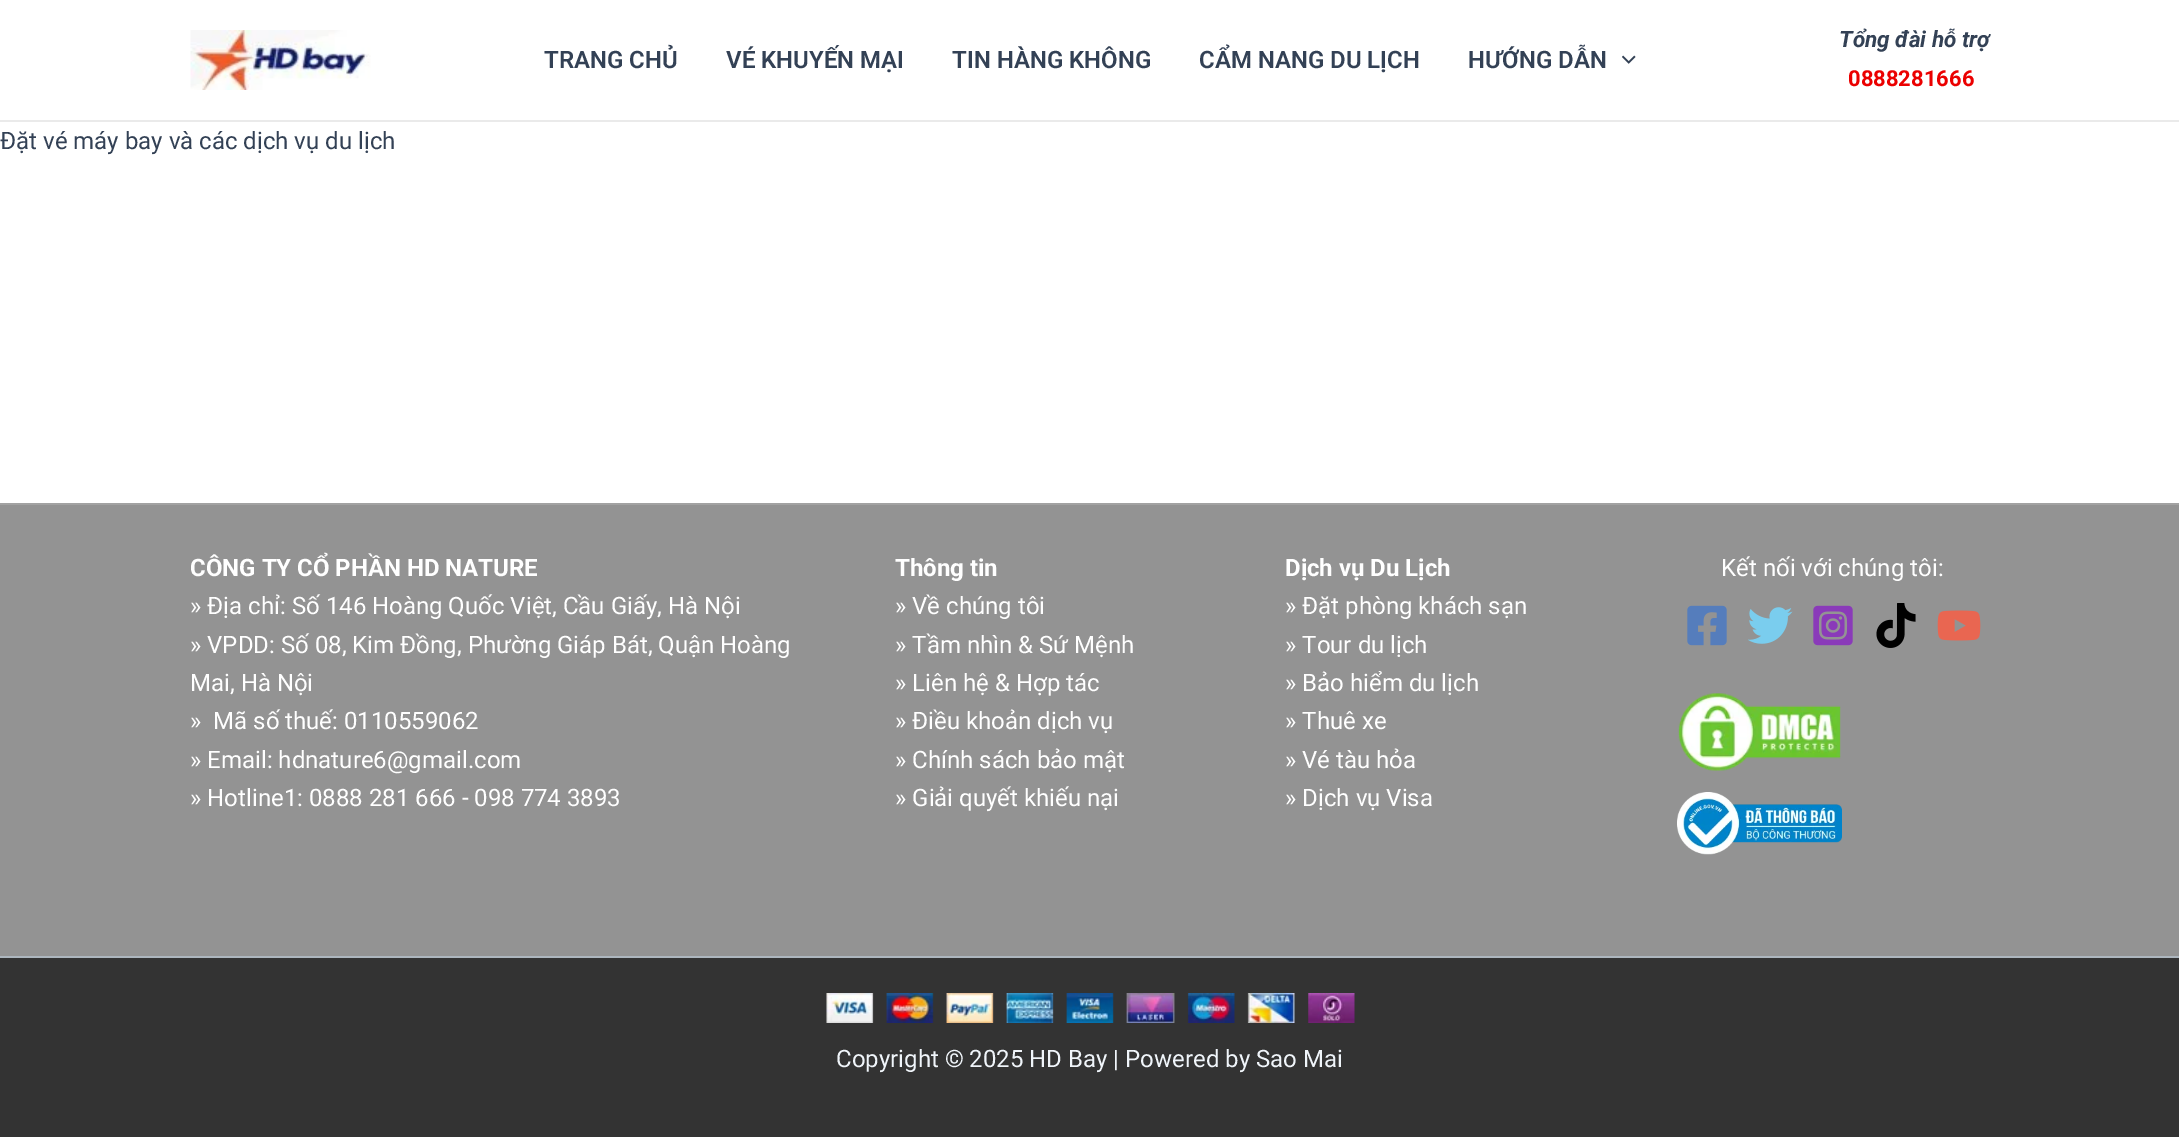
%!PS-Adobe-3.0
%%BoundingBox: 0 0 2179 1137
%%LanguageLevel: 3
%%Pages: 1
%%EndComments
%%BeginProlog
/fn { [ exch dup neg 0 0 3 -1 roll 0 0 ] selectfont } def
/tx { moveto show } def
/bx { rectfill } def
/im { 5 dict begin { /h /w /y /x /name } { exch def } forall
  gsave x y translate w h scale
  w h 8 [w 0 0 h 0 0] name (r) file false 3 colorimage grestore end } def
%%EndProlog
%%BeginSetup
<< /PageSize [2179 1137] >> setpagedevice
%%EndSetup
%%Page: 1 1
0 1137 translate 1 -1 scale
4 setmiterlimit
1 setgray
0 0 2179 1137 bx
0.918 setgray
0 120 2179 2 bx
(image0.raw) 190 30 181 60 im
/Roboto-SemiBold 24 fn
0.2 0.255 0.333 setrgbcolor
(TRANG CHỦ) 544 68 tx
(VÉ KHUYẾN MẠI) 726 68 tx
(TIN HÀNG KHÔNG) 952 68 tx
(CẨM NANG DU LỊCH) 1199 68 tx
(HƯỚNG DẪN) 1468 68 tx
(image1.raw) 1622 55 14 9 im
/Roboto-BoldItalic 22.5 fn
(Tổng đài hỗ trợ) 1839 47 tx
/Roboto-Bold 22 fn
0.922 0 0 setrgbcolor
(0888281666) 1848 86 tx
/Roboto-Regular 24 fn
0.2 0.255 0.333 setrgbcolor
(Đặt vé máy bay và các dịch vụ du lịch) 0 149 tx
0.576 setgray
0 505 2179 451 bx
0.635 setgray
0 503 2179 2 bx
/Roboto-Bold 24 fn
1 setgray
(CÔNG TY CỔ PHẦN HD NATURE) 190 576 tx
/Roboto-Regular 24 fn
(» Địa chỉ: Số 146 Hoàng Quốc Việt, Cầu Giấy, Hà Nội) 190 614 tx
(» VPDD: Số 08, Kim Đồng, Phường Giáp Bát, Quận Hoàng) 190 653 tx
(Mai, Hà Nội) 190 691 tx
(»  Mã số thuế: 0110559062) 190 729 tx
(» Email: hdnature6@gmail.com) 190 768 tx
(» Hotline1: 0888 281 666 - 098 774 3893) 190 806 tx
/Roboto-Bold 24 fn
(Thông tin) 895 576 tx
/Roboto-Regular 24 fn
(» Về chúng tôi) 895 614 tx
(» Tầm nhìn & Sứ Mệnh) 895 653 tx
(» Liên hệ & Hợp tác) 895 691 tx
(» Điều khoản dịch vụ) 895 729 tx
(» Chính sách bảo mật) 895 768 tx
(» Giải quyết khiếu nại) 895 806 tx
/Roboto-Bold 24 fn
(Dịch vụ Du Lịch) 1285 576 tx
/Roboto-Regular 24 fn
(» Đặt phòng khách sạn) 1285 614 tx
(» Tour du lịch) 1285 653 tx
(» Bảo hiểm du lịch) 1285 691 tx
(» Thuê xe) 1285 729 tx
(» Vé tàu hỏa) 1285 768 tx
(» Dịch vụ Visa) 1285 806 tx
(Kết nối với chúng tôi:) 1721 576 tx
(image2.raw) 1687 605 40 41 im
(image3.raw) 1748 607 45 37 im
(image4.raw) 1813 605 40 41 im
(image5.raw) 1876 603 40 45 im
(image6.raw) 1937 610 44 31 im
(image7.raw) 1678 693 163 78 im
(image8.raw) 1677 792 165 63 im
0.2 setgray
0 958 2179 179 bx
0.678 0.714 0.745 setrgbcolor
0 956 2179 2 bx
(image9.raw) 826 993 529 30 im
0.941 0.961 0.98 setrgbcolor
(Copyright © 2025 HD Bay | Powered by Sao Mai) 836 1067 tx
showpage
%%EOF
